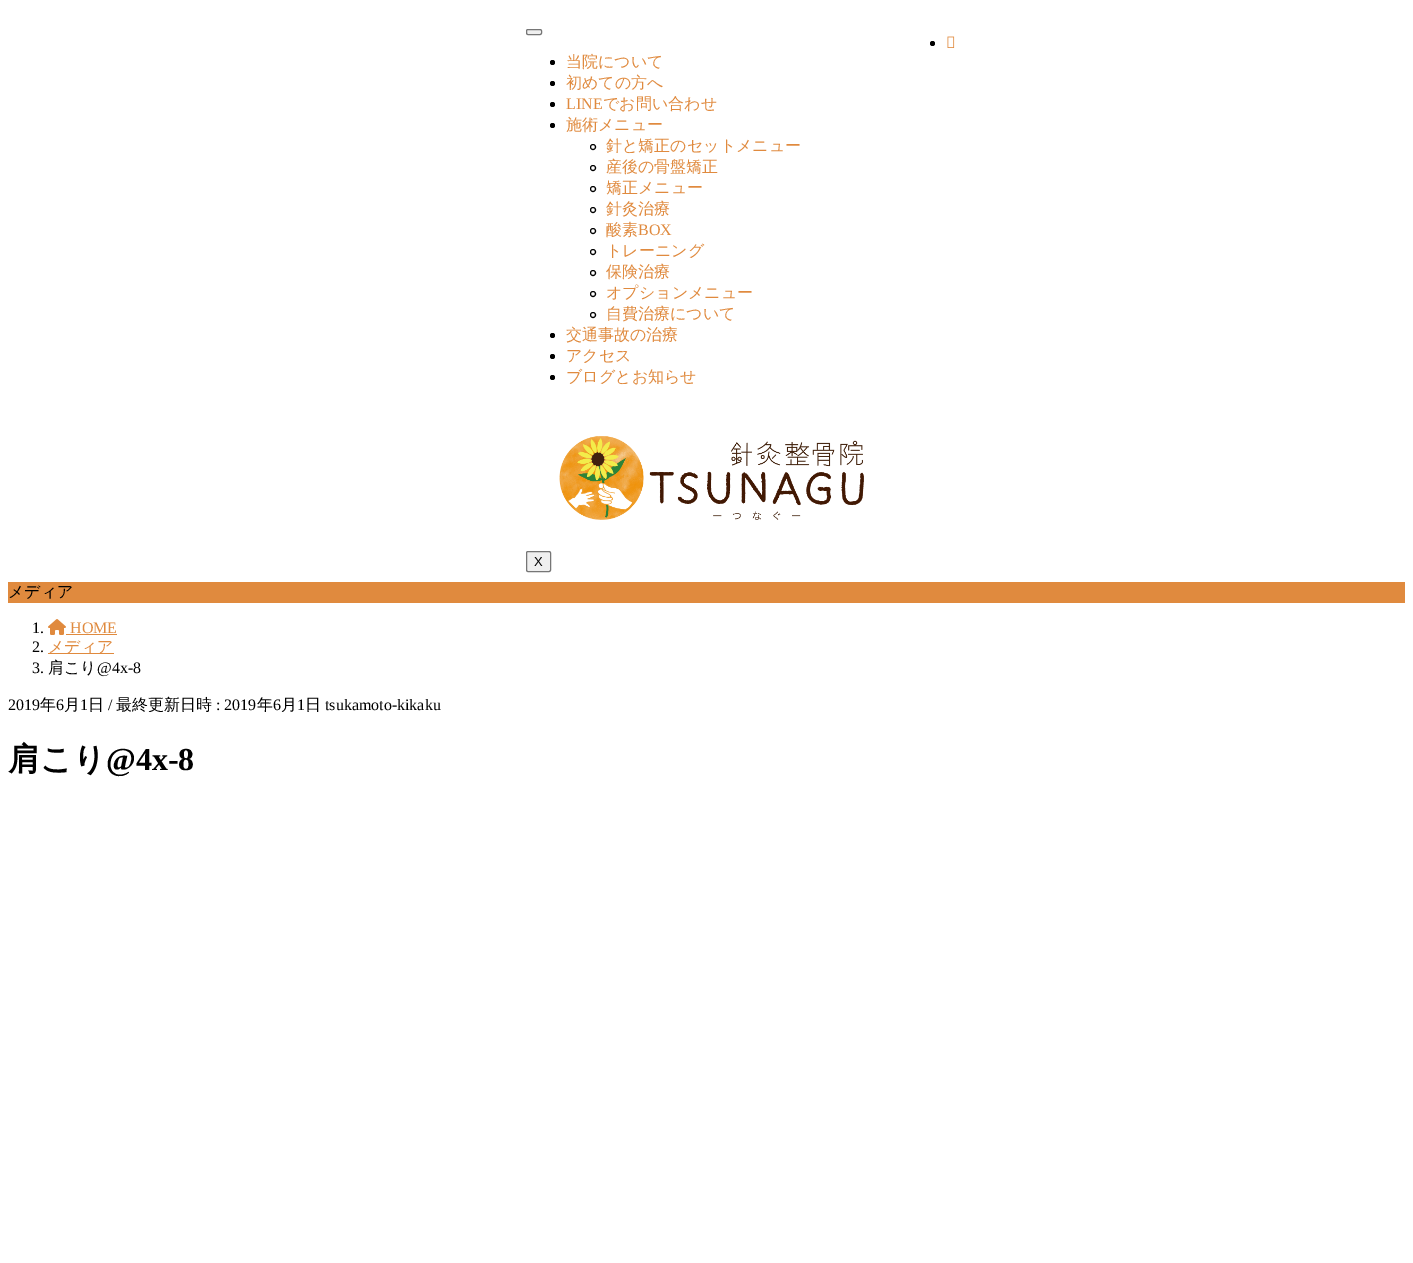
%!PS-Adobe-3.0
%%BoundingBox: 0 0 1413 1263
%%LanguageLevel: 3
%%Pages: 1
%%EndComments
%%BeginProlog
/f { fill } bind def
/S { stroke } bind def
/q { gsave } bind def
/Q { grestore } bind def
/fn { [ exch dup neg 0 0 3 -1 roll 0 0 ] selectfont } def
/tx { moveto show } def
/bx { rectfill } def
/ci { newpath 0 360 arc closepath } def
/rr { 5 dict begin { /r /h /w /y /x } { exch def } forall
  x r add y moveto x w add y 2 copy h add r arct x w add y h add x 1 index r arct
  x y h add x y r arct x y 2 copy exch w add exch r arct closepath end } def
/im { 5 dict begin { /h /w /y /x /name } { exch def } forall
  gsave x y translate w h scale
  w h 8 [w 0 0 h 0 0] name (r) file false 3 colorimage grestore end } def
%%EndProlog
%%BeginSetup
<< /PageSize [1413 1263] >> setpagedevice
%%EndSetup
%%Page: 1 1
0 1263 translate 1 -1 scale
4 setmiterlimit
1 setgray
0 0 1413 1263 bx
0 setgray
932.5 43.5 2.5 ci f
(image0.raw) 947 36 8 12 im
0.937 setgray
526.5 29.5 15 5 1.5 rr q f Q
0.463 setgray
S
0 setgray
552.5 62.5 2.5 ci f
/WenQuanYiZenHei-Medium 16 fn
0.878 0.541 0.243 setrgbcolor
(当院について) 566 67 tx
0 setgray
552.5 83.5 2.5 ci f
0.878 0.541 0.243 setrgbcolor
(初めての方へ) 566 88 tx
0 setgray
552.5 104.5 2.5 ci f
/LiberationSerif-Regular 16 fn
0.878 0.541 0.243 setrgbcolor
(LINE) 566 109 tx
/WenQuanYiZenHei-Medium 16 fn
(でお問い合わせ) 603 109 tx
0 setgray
552.5 125.5 2.5 ci f
0.878 0.541 0.243 setrgbcolor
(施術メニュー) 566 130 tx
0 setgray
593 147 2.5 ci S
0.878 0.541 0.243 setrgbcolor
(針と矯正のセットメニュー) 606 151 tx
0 setgray
593 168 2.5 ci S
0.878 0.541 0.243 setrgbcolor
(産後の骨盤矯正) 606 172 tx
0 setgray
593 189 2.5 ci S
0.878 0.541 0.243 setrgbcolor
(矯正メニュー) 606 193 tx
0 setgray
593 210 2.5 ci S
0.878 0.541 0.243 setrgbcolor
(針灸治療) 606 214 tx
0 setgray
593 231 2.5 ci S
0.878 0.541 0.243 setrgbcolor
(酸素) 606 235 tx
/LiberationSerif-Regular 16 fn
(BOX) 638 235 tx
0 setgray
593 252 2.5 ci S
/WenQuanYiZenHei-Medium 16 fn
0.878 0.541 0.243 setrgbcolor
(トレーニング) 606 256 tx
0 setgray
593 273 2.5 ci S
0.878 0.541 0.243 setrgbcolor
(保険治療) 606 277 tx
0 setgray
593 294 2.5 ci S
0.878 0.541 0.243 setrgbcolor
(オプションメニュー) 606 298 tx
0 setgray
593 315 2.5 ci S
0.878 0.541 0.243 setrgbcolor
(自費治療について) 606 319 tx
0 setgray
552.5 335.5 2.5 ci f
0.878 0.541 0.243 setrgbcolor
(交通事故の治療) 566 340 tx
0 setgray
552.5 356.5 2.5 ci f
0.878 0.541 0.243 setrgbcolor
(アクセス) 566 361 tx
0 setgray
552.5 377.5 2.5 ci f
0.878 0.541 0.243 setrgbcolor
(ブログとお知らせ) 566 382 tx
(image1.raw) 559 436 305 84 im
0.937 setgray
526.5 551.5 24 20 1.5 rr q f Q
0.463 setgray
S
/LiberationSans-Regular 13 fn
0 setgray
(X) 534 566 tx
0.878 0.541 0.243 setrgbcolor
8 582 1397 21 bx
/WenQuanYiZenHei-Medium 16 fn
0 setgray
(メディア) 8 597 tx
/LiberationSerif-Regular 16 fn
(1.) 32 633 tx
(image2.raw) 48 619 18 16 im
0.878 0.541 0.243 setrgbcolor
(HOME) 70 633 tx
66 634 51 1 bx
0 setgray
(2.) 32 652 tx
0.878 0.541 0.243 setrgbcolor
48 653 66 1 bx
/WenQuanYiZenHei-Medium 16 fn
(メディア) 48 652 tx
/LiberationSerif-Regular 16 fn
0 setgray
(3.) 32 673 tx
/WenQuanYiZenHei-Medium 16 fn
(肩こり) 48 673 tx
/LiberationSerif-Regular 16 fn
(@4x-8) 97 673 tx
(2019) 8 710 tx
/WenQuanYiZenHei-Medium 16 fn
(年) 40 710 tx
/LiberationSerif-Regular 16 fn
(6) 56 710 tx
/WenQuanYiZenHei-Medium 16 fn
(月) 64 710 tx
/LiberationSerif-Regular 16 fn
(1) 80 710 tx
/WenQuanYiZenHei-Medium 16 fn
(日) 88 710 tx
/LiberationSerif-Regular 16 fn
(/) 108 710 tx
/WenQuanYiZenHei-Medium 16 fn
(最終更新日時) 116 710 tx
/LiberationSerif-Regular 16 fn
(: 2019) 216 710 tx
/WenQuanYiZenHei-Medium 16 fn
(年) 257 710 tx
/LiberationSerif-Regular 16 fn
(6) 273 710 tx
/WenQuanYiZenHei-Medium 16 fn
(月) 281 710 tx
/LiberationSerif-Regular 16 fn
(1) 297 710 tx
/WenQuanYiZenHei-Medium 16 fn
(日) 305 710 tx
/LiberationSerif-Regular 16 fn
(tsukamoto-kikaku) 325 710 tx
/WenQuanYiZenHei-Bold 32 fn
(肩こり) 8 770 tx
/LiberationSerif-Bold 32 fn
(@4x-8) 106 770 tx
showpage
%%EOF
